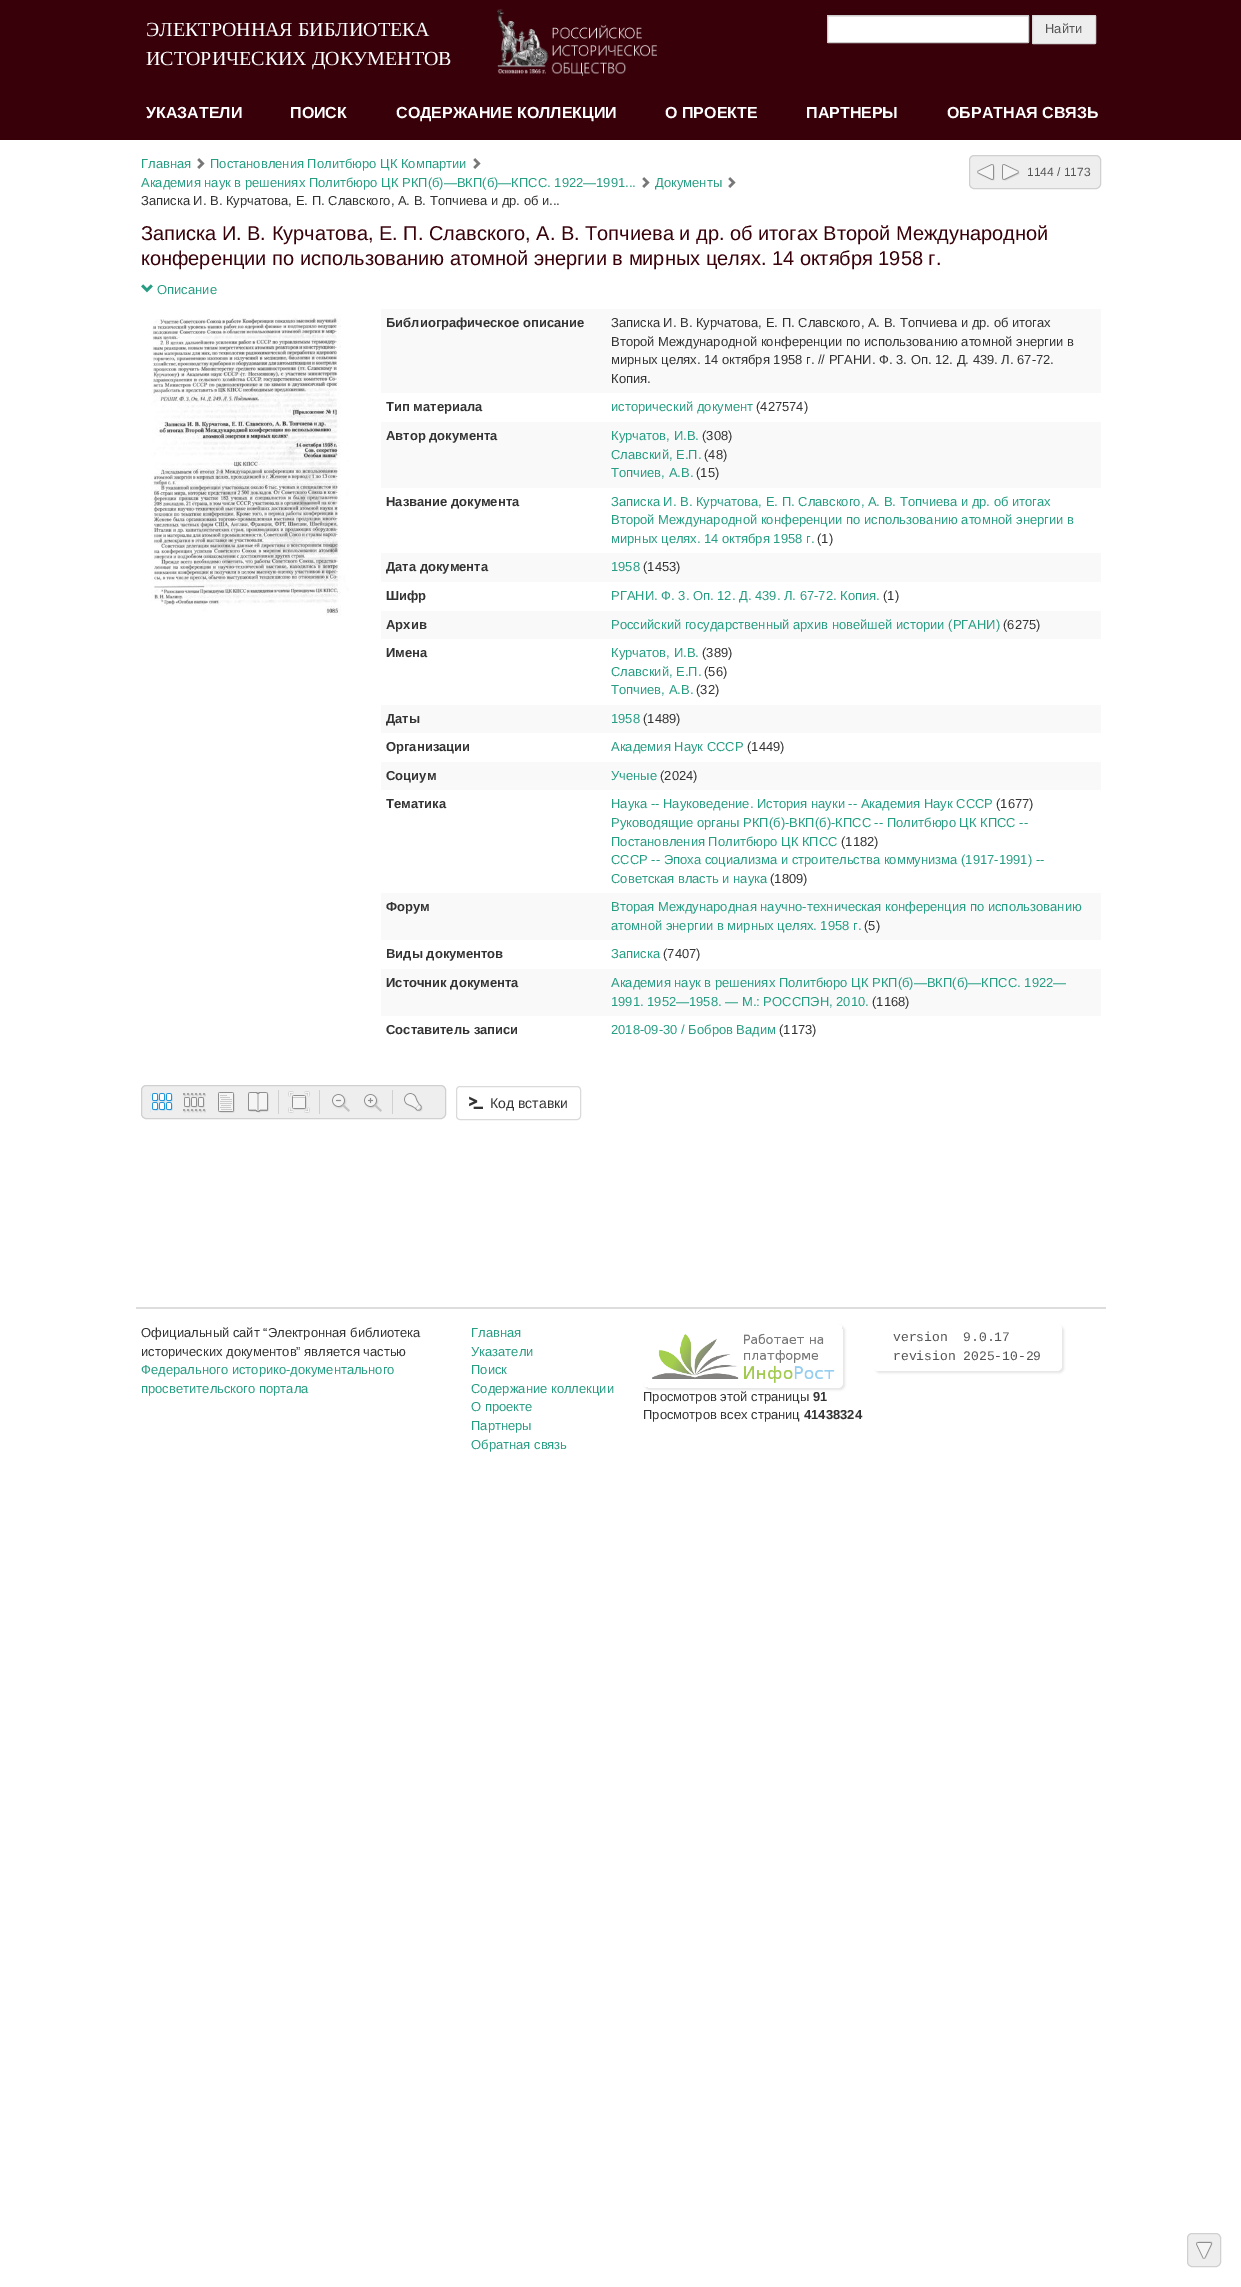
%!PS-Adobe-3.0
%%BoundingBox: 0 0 1241 2287
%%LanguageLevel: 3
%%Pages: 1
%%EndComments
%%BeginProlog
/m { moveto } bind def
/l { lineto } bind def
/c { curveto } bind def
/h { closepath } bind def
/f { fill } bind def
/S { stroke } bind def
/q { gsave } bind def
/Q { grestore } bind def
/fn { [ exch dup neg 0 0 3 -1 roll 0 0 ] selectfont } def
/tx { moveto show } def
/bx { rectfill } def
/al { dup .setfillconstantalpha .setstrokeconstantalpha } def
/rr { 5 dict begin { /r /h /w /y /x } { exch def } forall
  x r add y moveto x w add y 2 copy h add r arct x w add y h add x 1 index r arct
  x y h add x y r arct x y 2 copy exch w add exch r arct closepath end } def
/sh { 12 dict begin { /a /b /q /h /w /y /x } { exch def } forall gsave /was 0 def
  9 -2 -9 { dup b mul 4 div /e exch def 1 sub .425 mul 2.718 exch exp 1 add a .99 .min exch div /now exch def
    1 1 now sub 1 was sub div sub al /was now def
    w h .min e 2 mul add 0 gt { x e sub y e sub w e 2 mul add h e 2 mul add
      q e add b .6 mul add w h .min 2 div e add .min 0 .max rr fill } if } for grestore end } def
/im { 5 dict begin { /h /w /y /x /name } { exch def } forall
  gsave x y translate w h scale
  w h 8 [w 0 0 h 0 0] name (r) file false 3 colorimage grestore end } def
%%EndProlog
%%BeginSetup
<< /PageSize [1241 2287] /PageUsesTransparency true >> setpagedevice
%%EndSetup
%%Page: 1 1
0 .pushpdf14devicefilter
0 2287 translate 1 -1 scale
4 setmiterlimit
1 setgray
0 0 1241 2287 bx
0.22 0 0.035 setrgbcolor
0 0 1241 140 bx
/LiberationSerif-Regular 20 fn
1 setgray
(ЭЛЕКТРОННАЯ БИБЛИОТЕКА) 146 36 tx
(ИСТОРИЧЕСКИХ ДОКУМЕНТОВ) 146 65 tx
(image0.raw) 497 9 160 67 im
827 15 202 28 1 rr f
0.925 setgray
828 16 200 1 bx
0.8 setgray
827.5 15.5 201 27 0.5 rr S
0.933 setgray
1032.5 15.5 63 28 0.5 rr q f Q
0.855 setgray
S
/LiberationSans-Regular 13 fn
0.333 setgray
(Найти) 1045 33 tx
/LiberationSans-Bold 16 fn
1 setgray
(УКАЗАТЕЛИ) 146 118 tx
(ПОИСК) 290 118 tx
(СОДЕРЖАНИЕ КОЛЛЕКЦИИ) 396 118 tx
(О ПРОЕКТЕ) 665 118 tx
(ПАРТНЕРЫ) 806 118 tx
(ОБРАТНАЯ СВЯЗЬ) 947 118 tx
/LiberationSans-Regular 13 fn
0.153 0.616 0.514 setrgbcolor
(Главная) 141 168 tx
(image1.raw) 197 158 8 11 im
(Постановления Политбюро ЦК Компартии) 210 168 tx
(image1.raw) 473 158 8 11 im
(Академия наук в решениях Политбюро ЦК РКП\(б\)—ВКП\(б\)—КПСС. 1922—1991...) 141 187 tx
(image1.raw) 642 177 8 11 im
(Документы) 655 187 tx
(image1.raw) 728 177 8 11 im
0.2 setgray
(Записка И. В. Курчатова, Е. П. Славского, А. В. Топчиева и др. об и...) 141 205 tx
0.933 setgray
969.5 155.5 131 33 4.5 rr q f Q
0.816 setgray
S
(image2.raw) 977 164 18 17 im
(image3.raw) 1002 164 18 17 im
/LiberationSans-Regular 12 fn
0.333 setgray
(1144 / 1173) 1027 176 tx
/LiberationSans-Regular 20 fn
0.22 0 0.035 setrgbcolor
(Записка И. В. Курчатова, Е. П. Славского, А. В. Топчиева и др. об итогах Второй Международной) 141 240 tx
(конференции по использованию атомной энергии в мирных целях. 14 октября 1958 г.) 141 265 tx
(image4.raw) 141 284 12 9 im
/LiberationSans-Regular 13 fn
0.153 0.616 0.514 setrgbcolor
(Описание) 157 294 tx
(image5.raw) 151 314 198 302 im
0.976 setgray
381 309 720 84 bx
/LiberationSans-Bold 13 fn
0.2 setgray
(Библиографическое описание) 386 327 tx
/LiberationSans-Regular 13 fn
(Записка И. В. Курчатова, Е. П. Славского, А. В. Топчиева и др. об итогах) 611 327 tx
(Второй Международной конференции по использованию атомной энергии в) 611 346 tx
(мирных целях. 14 октября 1958 г. // РГАНИ. Ф. 3. Oп. 12. Д. 439. Л. 67-72.) 611 364 tx
(Копия.) 611 383 tx
/LiberationSans-Bold 13 fn
(Тип материала) 386 411 tx
/LiberationSans-Regular 13 fn
0.153 0.616 0.514 setrgbcolor
(исторический документ) 611 411 tx
0.2 setgray
(\(427574\)) 756 411 tx
0.976 setgray
381 422 720 66 bx
/LiberationSans-Bold 13 fn
0.2 setgray
(Автор документа) 386 440 tx
/LiberationSans-Regular 13 fn
0.153 0.616 0.514 setrgbcolor
(Курчатов, И.В.) 611 440 tx
0.2 setgray
(\(308\)) 702 440 tx
0.153 0.616 0.514 setrgbcolor
(Славский, Е.П.) 611 459 tx
0.2 setgray
(\(48\)) 704 459 tx
0.153 0.616 0.514 setrgbcolor
(Топчиев, А.В.) 611 477 tx
0.2 setgray
(\(15\)) 696 477 tx
/LiberationSans-Bold 13 fn
(Название документа) 386 506 tx
/LiberationSans-Regular 13 fn
0.153 0.616 0.514 setrgbcolor
(Записка И. В. Курчатова, Е. П. Славского, А. В. Топчиева и др. об итогах) 611 506 tx
(Второй Международной конференции по использованию атомной энергии в) 611 524 tx
(мирных целях. 14 октября 1958 г.) 611 543 tx
0.2 setgray
(\(1\)) 817 543 tx
0.976 setgray
381 553 720 29 bx
/LiberationSans-Bold 13 fn
0.2 setgray
(Дата документа) 386 571 tx
/LiberationSans-Regular 13 fn
0.153 0.616 0.514 setrgbcolor
(1958) 611 571 tx
0.2 setgray
(\(1453\)) 643 571 tx
/LiberationSans-Bold 13 fn
(Шифр) 386 600 tx
/LiberationSans-Regular 13 fn
0.153 0.616 0.514 setrgbcolor
(РГАНИ. Ф. 3. Oп. 12. Д. 439. Л. 67-72. Копия.) 611 600 tx
0.2 setgray
(\(1\)) 883 600 tx
0.976 setgray
381 611 720 28 bx
/LiberationSans-Bold 13 fn
0.2 setgray
(Архив) 386 629 tx
/LiberationSans-Regular 13 fn
0.153 0.616 0.514 setrgbcolor
(Российский государственный архив новейшей истории \(РГАНИ\)) 611 629 tx
0.2 setgray
(\(6275\)) 1003 629 tx
/LiberationSans-Bold 13 fn
(Имена) 386 657 tx
/LiberationSans-Regular 13 fn
0.153 0.616 0.514 setrgbcolor
(Курчатов, И.В.) 611 657 tx
0.2 setgray
(\(389\)) 702 657 tx
0.153 0.616 0.514 setrgbcolor
(Славский, Е.П.) 611 676 tx
0.2 setgray
(\(56\)) 704 676 tx
0.153 0.616 0.514 setrgbcolor
(Топчиев, А.В.) 611 694 tx
0.2 setgray
(\(32\)) 696 694 tx
0.976 setgray
381 705 720 28 bx
/LiberationSans-Bold 13 fn
0.2 setgray
(Даты) 386 723 tx
/LiberationSans-Regular 13 fn
0.153 0.616 0.514 setrgbcolor
(1958) 611 723 tx
0.2 setgray
(\(1489\)) 643 723 tx
/LiberationSans-Bold 13 fn
(Организации) 386 751 tx
/LiberationSans-Regular 13 fn
0.153 0.616 0.514 setrgbcolor
(Академия Наук СССР) 611 751 tx
0.2 setgray
(\(1449\)) 747 751 tx
0.976 setgray
381 762 720 28 bx
/LiberationSans-Bold 13 fn
0.2 setgray
(Социум) 386 780 tx
/LiberationSans-Regular 13 fn
0.153 0.616 0.514 setrgbcolor
(Ученые) 611 780 tx
0.2 setgray
(\(2024\)) 660 780 tx
/LiberationSans-Bold 13 fn
(Тематика) 386 808 tx
/LiberationSans-Regular 13 fn
0.153 0.616 0.514 setrgbcolor
(Наука -- Науковедение. История науки -- Академия Наук СССР) 611 808 tx
0.2 setgray
(\(1677\)) 996 808 tx
0.153 0.616 0.514 setrgbcolor
(Руководящие органы РКП\(б\)-ВКП\(б\)-КПСС -- Политбюро ЦК КПСС --) 611 827 tx
(Постановления Политбюро ЦК КПСС) 611 846 tx
0.2 setgray
(\(1182\)) 841 846 tx
0.153 0.616 0.514 setrgbcolor
(СССР -- Эпоха социализма и строительства коммунизма \(1917-1991\) --) 611 864 tx
(Советская власть и наука) 611 883 tx
0.2 setgray
(\(1809\)) 770 883 tx
0.976 setgray
381 893 720 47 bx
/LiberationSans-Bold 13 fn
0.2 setgray
(Форум) 386 911 tx
/LiberationSans-Regular 13 fn
0.153 0.616 0.514 setrgbcolor
(Вторая Международная научно-техническая конференция по использованию) 611 911 tx
(атомной энергии в мирных целях. 1958 г.) 611 930 tx
0.2 setgray
(\(5\)) 864 930 tx
/LiberationSans-Bold 13 fn
(Виды документов) 386 958 tx
/LiberationSans-Regular 13 fn
0.153 0.616 0.514 setrgbcolor
(Записка) 611 958 tx
0.2 setgray
(\(7407\)) 663 958 tx
0.976 setgray
381 969 720 47 bx
/LiberationSans-Bold 13 fn
0.2 setgray
(Источник документа) 386 987 tx
/LiberationSans-Regular 13 fn
0.153 0.616 0.514 setrgbcolor
(Академия наук в решениях Политбюро ЦК РКП\(б\)—ВКП\(б\)—КПСС. 1922—) 611 987 tx
(1991. 1952—1958. — М.: РОССПЭН, 2010.) 611 1006 tx
0.2 setgray
(\(1168\)) 872 1006 tx
/LiberationSans-Bold 13 fn
(Составитель записи) 386 1034 tx
/LiberationSans-Regular 13 fn
0.153 0.616 0.514 setrgbcolor
(2018-09-30 / Бобров Вадим) 611 1034 tx
0.2 setgray
(\(1173\)) 779 1034 tx
0.933 setgray
141.5 1085.5 304 33 4.5 rr q f Q
0.816 setgray
S
(image6.raw) 150 1093 23 20 im
(image7.raw) 183 1093 23 20 im
(image8.raw) 218 1092 17 21 im
(image9.raw) 248 1092 21 21 im
278 1090 1 24 bx
(image10.raw) 288 1091 22 22 im
319 1090 1 24 bx
(image11.raw) 332 1094 18 18 im
(image12.raw) 364 1094 18 18 im
392 1090 1 24 bx
(image13.raw) 404 1093 19 19 im
0.855 setgray
456.5 1086.5 124 33 3.5 rr S
(image14.raw) 469 1096 14 13 im
/LiberationSans-Regular 14 fn
0.2 setgray
(Код вставки) 490 1108 tx
0.933 setgray
1187.5 2233.5 33 33 4.5 rr q f Q
0.816 setgray
S
(image15.raw) 1196 2241 17 18 im
0.867 setgray
136 1307 970 2 bx
/LiberationSans-Regular 13 fn
0.2 setgray
(Официальный сайт “Электронная библиотека) 141 1337 tx
(исторических документов” является частью) 141 1356 tx
0.153 0.616 0.514 setrgbcolor
(Федерального историко-документального) 141 1374 tx
(просветительского портала) 141 1393 tx
(Главная) 471 1337 tx
(Указатели) 471 1356 tx
(Поиск) 471 1374 tx
(Содержание коллекции) 471 1393 tx
(О проекте) 471 1411 tx
(Партнеры) 471 1430 tx
(Обратная связь) 471 1449 tx
q
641 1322 m 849 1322 l 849 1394 l 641 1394 l h 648 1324 m 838 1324 l 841 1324 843 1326 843 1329 c 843 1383 l 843 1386 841 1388 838 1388 c 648 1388 l 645 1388 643 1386 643 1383 c 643 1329 l 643 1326 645 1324 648 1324 c h eoclip newpath
0 setgray
645 1326 200 64 5 1 0.1 sh
Q
(image16.raw) 652 1333 191 55 im
0 setgray
875 1326 189 47 5 1 0.1 sh
1 setgray
873 1324 189 47 5 rr f
/LiberationMono-Regular 13 fn
0.333 setgray
(version  9.0.17) 893 1341 tx
(revision 2025-10-29) 893 1360 tx
/LiberationSans-Regular 13 fn
0.2 setgray
(Просмотров этой страницы) 643 1401 tx
/LiberationSans-Bold 13 fn
(91) 813 1401 tx
/LiberationSans-Regular 13 fn
(Просмотров всех страниц) 643 1419 tx
/LiberationSans-Bold 13 fn
(41438324) 804 1419 tx
.poppdf14devicefilter showpage
%%EOF
